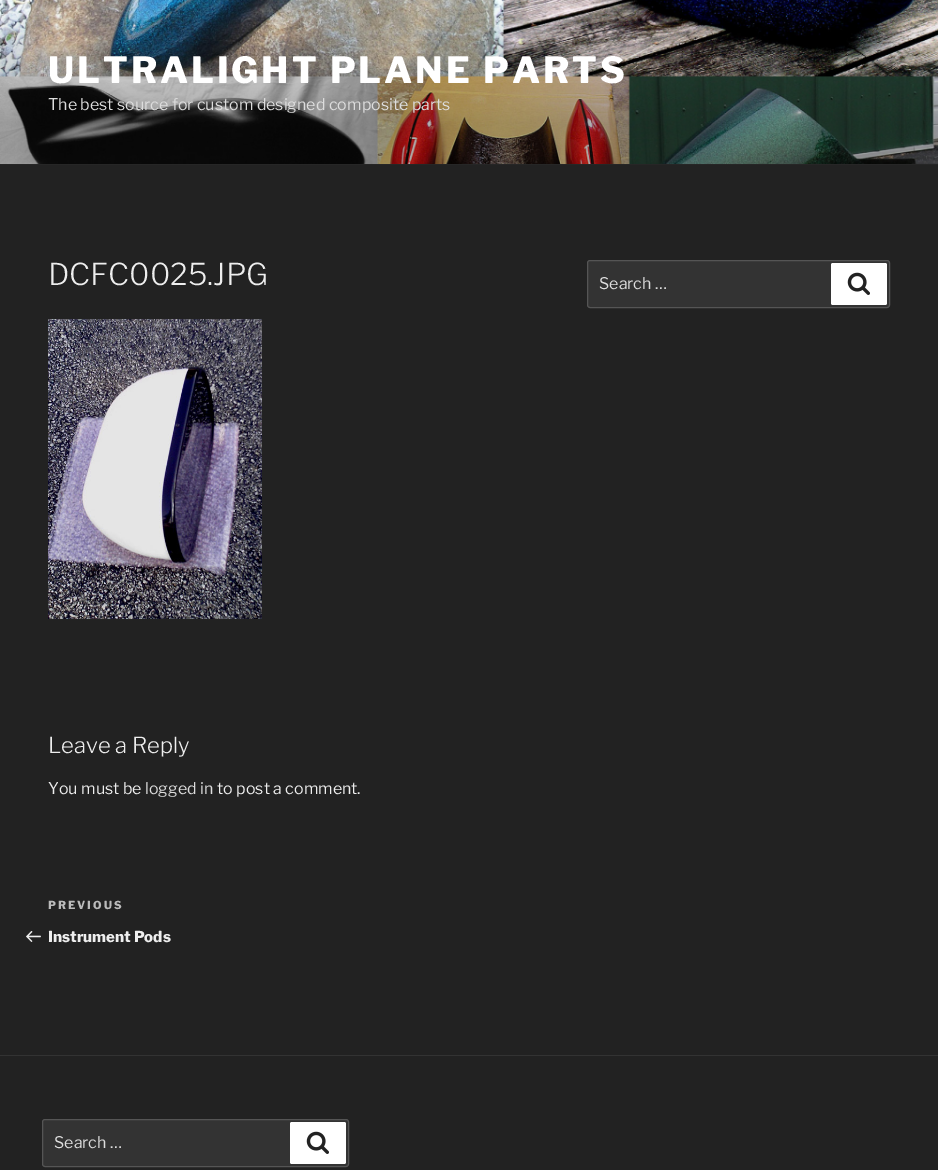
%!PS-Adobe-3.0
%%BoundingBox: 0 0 938 1170
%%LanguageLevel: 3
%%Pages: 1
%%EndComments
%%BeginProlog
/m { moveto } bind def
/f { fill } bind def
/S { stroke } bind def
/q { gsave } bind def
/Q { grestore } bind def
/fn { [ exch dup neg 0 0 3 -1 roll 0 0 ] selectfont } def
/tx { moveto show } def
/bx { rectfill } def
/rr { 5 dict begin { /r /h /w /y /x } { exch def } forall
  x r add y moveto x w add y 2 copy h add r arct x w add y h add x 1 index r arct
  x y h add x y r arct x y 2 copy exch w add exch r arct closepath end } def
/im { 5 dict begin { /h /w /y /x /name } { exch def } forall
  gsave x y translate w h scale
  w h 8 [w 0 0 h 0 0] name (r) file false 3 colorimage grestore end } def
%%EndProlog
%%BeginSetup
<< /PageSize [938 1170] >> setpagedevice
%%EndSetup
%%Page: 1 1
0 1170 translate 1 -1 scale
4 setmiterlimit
0.133 setgray
0 0 938 1170 bx
0.149 setgray
0 164 938 1 bx
(image0.raw) 0 0 938 164 im
/LibreFranklin-Thin 36 fn
1 setgray
48 83 m 2.9 0 (ULTRALIGHT PLANE PARTS) ashow
/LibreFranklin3-Thin 16 fn
0.867 setgray
(The best source for custom designed composite parts) 48 110 tx
/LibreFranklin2-Thin 30 fn
0.933 setgray
(DCFC0025.JPG) 48 285 tx
(image1.raw) 48 319 214 300 im
/LibreFranklin2-Thin 22 fn
(Leave a Reply) 48 753 tx
/LibreFranklin3-Thin 16 fn
(You must be) 48 794 tx
0.867 setgray
(logged in) 145 794 tx
0.933 setgray
(to post a comment.) 217 794 tx
/LibreFranklin-Thin 11 fn
0.733 setgray
48 909 m 2 0 (PREVIOUS) ashow
(image2.raw) 26 931 15 11 im
/LibreFranklin-Thin 15 fn
0.933 setgray
(Instrument Pods) 48 942 tx
0.2 setgray
587.5 260.5 302 47 2.5 rr q f Q
0.333 setgray
S
/LibreFranklin3-Thin 16 fn
0.867 setgray
(Search …) 599 289 tx
1 setgray
831 263 56 42 2 rr f
(image3.raw) 847 272 23 23 im
0.2 setgray
0 1055 938 1 bx
42.5 1119.5 306 47 2.5 rr q f Q
0.333 setgray
S
0.867 setgray
(Search …) 54 1148 tx
1 setgray
290 1122 56 42 2 rr f
(image3.raw) 306 1131 23 23 im
showpage
%%EOF
